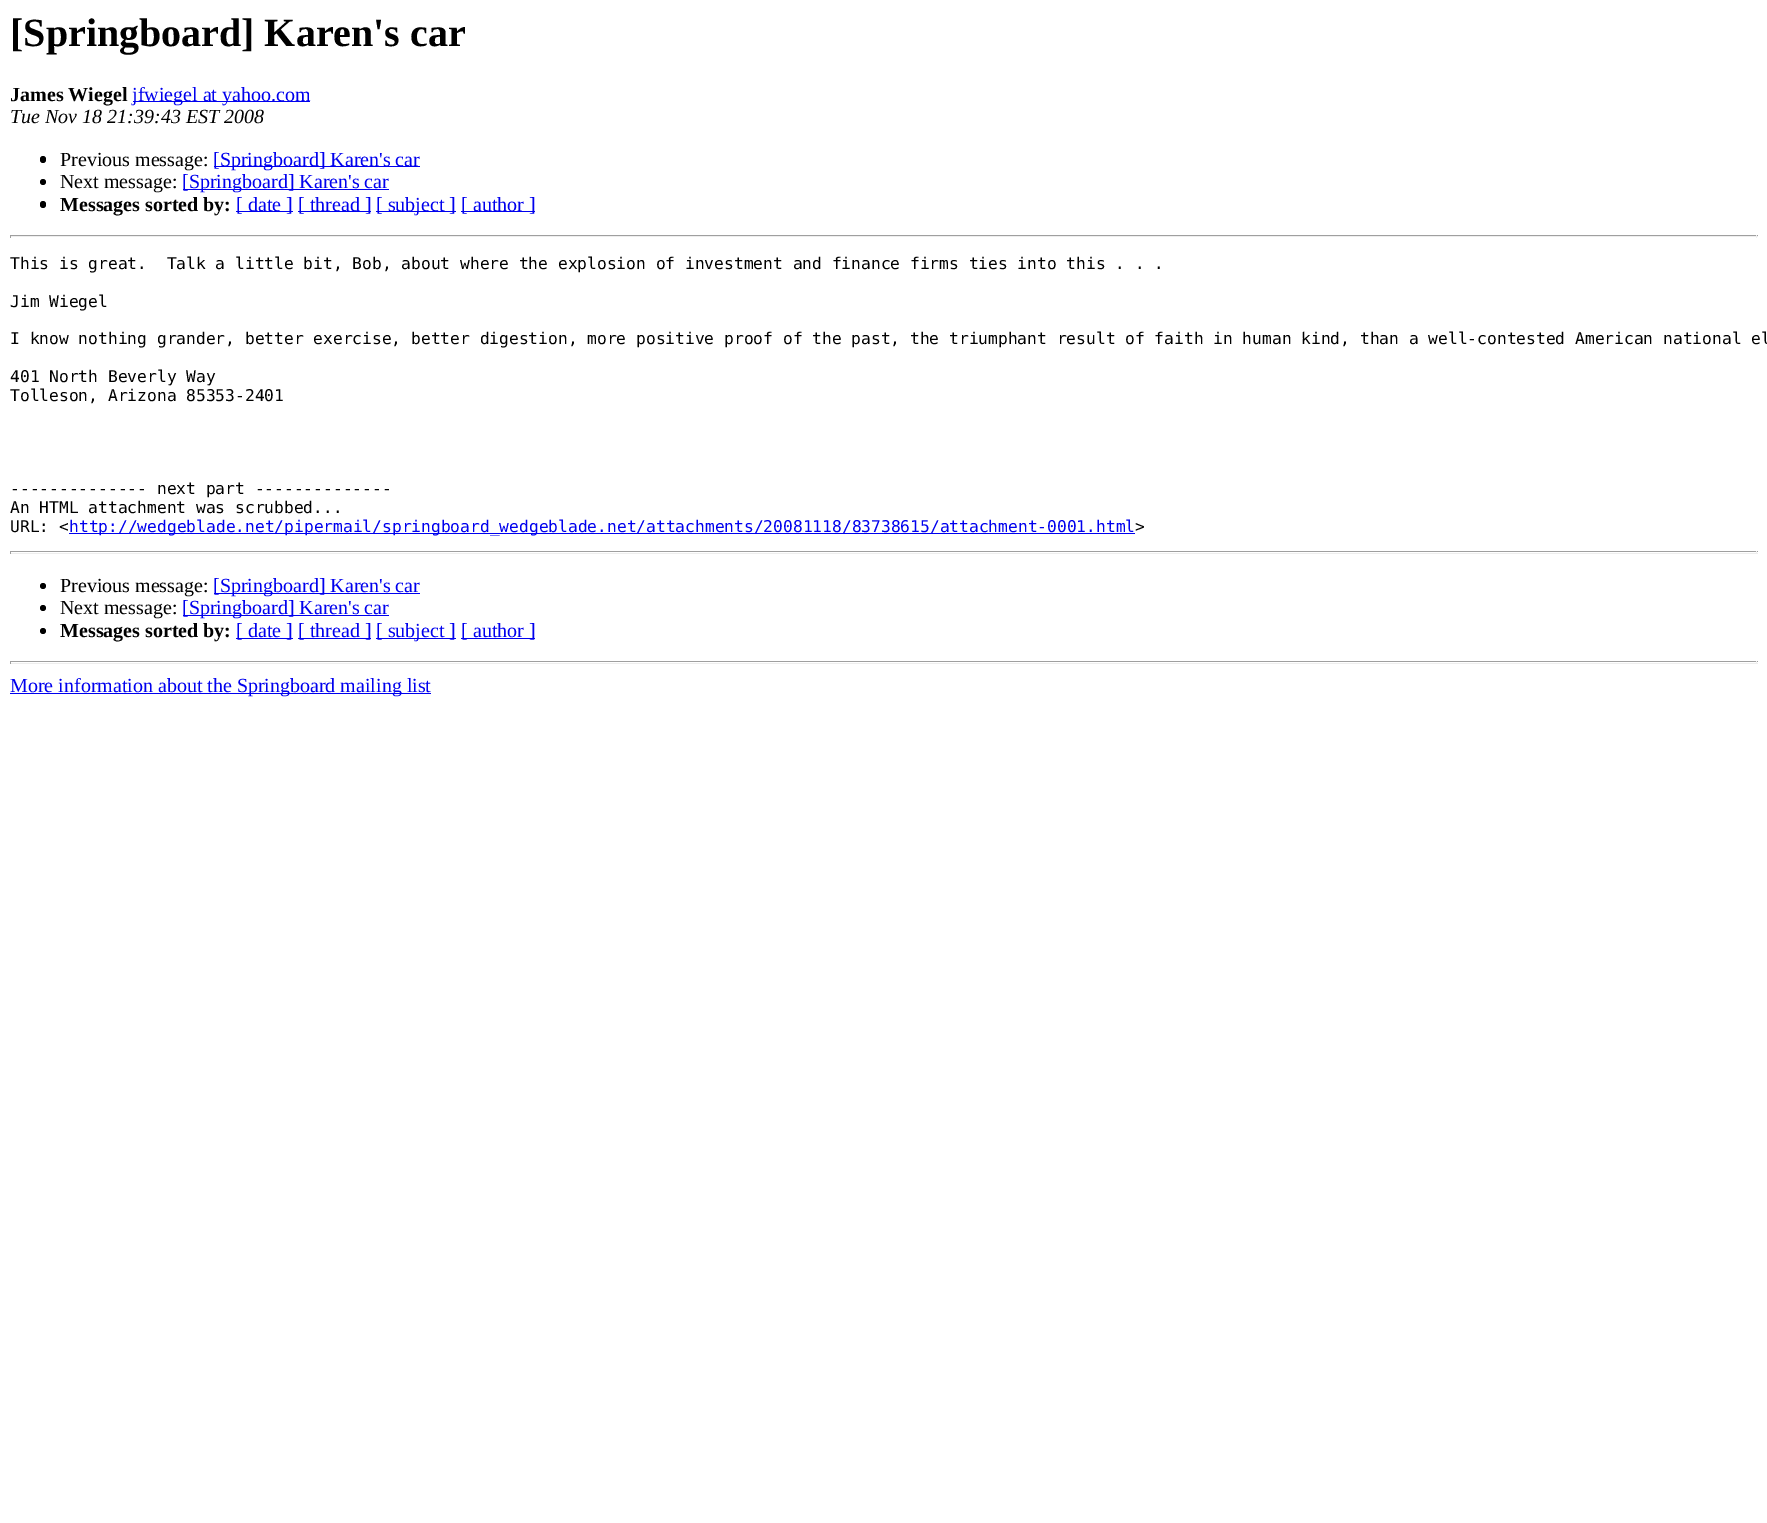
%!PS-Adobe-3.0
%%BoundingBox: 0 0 1767 1523
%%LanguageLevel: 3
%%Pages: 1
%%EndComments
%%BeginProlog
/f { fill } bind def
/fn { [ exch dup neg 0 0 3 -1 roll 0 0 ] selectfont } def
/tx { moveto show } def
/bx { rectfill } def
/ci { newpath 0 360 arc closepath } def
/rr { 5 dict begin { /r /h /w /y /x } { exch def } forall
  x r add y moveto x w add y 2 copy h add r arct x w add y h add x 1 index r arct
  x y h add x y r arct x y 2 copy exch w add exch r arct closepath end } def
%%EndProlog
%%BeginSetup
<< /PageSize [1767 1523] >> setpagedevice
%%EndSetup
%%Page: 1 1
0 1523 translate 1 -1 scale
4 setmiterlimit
1 setgray
0 0 1767 1523 bx
/LiberationSerif-Bold 40 fn
0 setgray
([Springboard] Karen's car) 10 46 tx
/LiberationSerif-Bold 20 fn
(James Wiegel) 10 101 tx
0 0 0.933 setrgbcolor
133 101 177 1 bx
/LiberationSerif-Regular 20 fn
(jfwiegel at yahoo.com) 132 101 tx
/LiberationSerif-Italic 20 fn
0 setgray
(Tue Nov 18 21:39:43 EST 2008) 10 123 tx
40 156 6 7 3 rr f
/LiberationSerif-Regular 20 fn
(Previous message:) 60 166 tx
0 0 0.933 setrgbcolor
214 166 206 1 bx
([Springboard] Karen's car) 213 166 tx
0 setgray
43 182 3 ci f
(Next message:) 60 188 tx
0 0 0.933 setrgbcolor
183 189 206 1 bx
([Springboard] Karen's car) 182 188 tx
0 setgray
40 201 6 7 3 rr f
/LiberationSerif-Bold 20 fn
(Messages sorted by:) 60 211 tx
0 0 0.933 setrgbcolor
236 211 57 1 bx
/LiberationSerif-Regular 20 fn
([ date ]) 236 211 tx
298 211 73 1 bx
([ thread ]) 298 211 tx
376 211 80 1 bx
([ subject ]) 376 211 tx
461 211 74 1 bx
([ author ]) 461 211 tx
0.624 setgray
10 235 1748 1 bx
0.933 setgray
1756 235 1 3 bx
10 236 1748 1 bx
0.624 setgray
10 235 1 3 bx
/DejaVuSansMono-Regular 16.25 fn
0 setgray
(This is great.  Talk a little bit, Bob, about where the explosion of investment and finance firms ties into this . . .) 10 269 tx
(Jim Wiegel) 10 307 tx
(I know nothing grander, better exercise, better digestion, more positive proof of the past, the triumphant result of faith in human kind, than a well-contested American national el) 10 344 tx
(401 North Beverly Way) 10 382 tx
(Tolleson, Arizona 85353-2401) 10 401 tx
(-------------- next part --------------) 10 494 tx
(An HTML attachment was scrubbed...) 10 513 tx
(URL: <) 10 532 tx
0 0 0.933 setrgbcolor
69 533 1066 1 bx
(http://wedgeblade.net/pipermail/springboard_wedgeblade.net/attachments/20081118/83738615/attachment-0001.html) 69 532 tx
0 setgray
(>) 1135 532 tx
0.624 setgray
10 551 1748 1 bx
0.933 setgray
1756 551 1 3 bx
10 553 1748 1 bx
0.624 setgray
10 551 1 3 bx
0 setgray
43 586 3 ci f
/LiberationSerif-Regular 20 fn
(Previous message:) 60 592 tx
0 0 0.933 setrgbcolor
214 593 206 1 bx
([Springboard] Karen's car) 213 592 tx
0 setgray
43 608 3 ci f
(Next message:) 60 614 tx
0 0 0.933 setrgbcolor
183 615 206 1 bx
([Springboard] Karen's car) 182 614 tx
0 setgray
43 631 3 ci f
/LiberationSerif-Bold 20 fn
(Messages sorted by:) 60 637 tx
0 0 0.933 setrgbcolor
236 638 57 1 bx
/LiberationSerif-Regular 20 fn
([ date ]) 236 637 tx
298 638 73 1 bx
([ thread ]) 298 637 tx
376 638 80 1 bx
([ subject ]) 376 637 tx
461 638 74 1 bx
([ author ]) 461 637 tx
0.624 setgray
10 661 1748 1 bx
0.933 setgray
1756 661 1 3 bx
10 663 1748 1 bx
0.624 setgray
10 661 1 3 bx
0 0 0.933 setrgbcolor
10 693 421 1 bx
(More information about the Springboard mailing list) 10 692 tx
showpage
%%EOF
